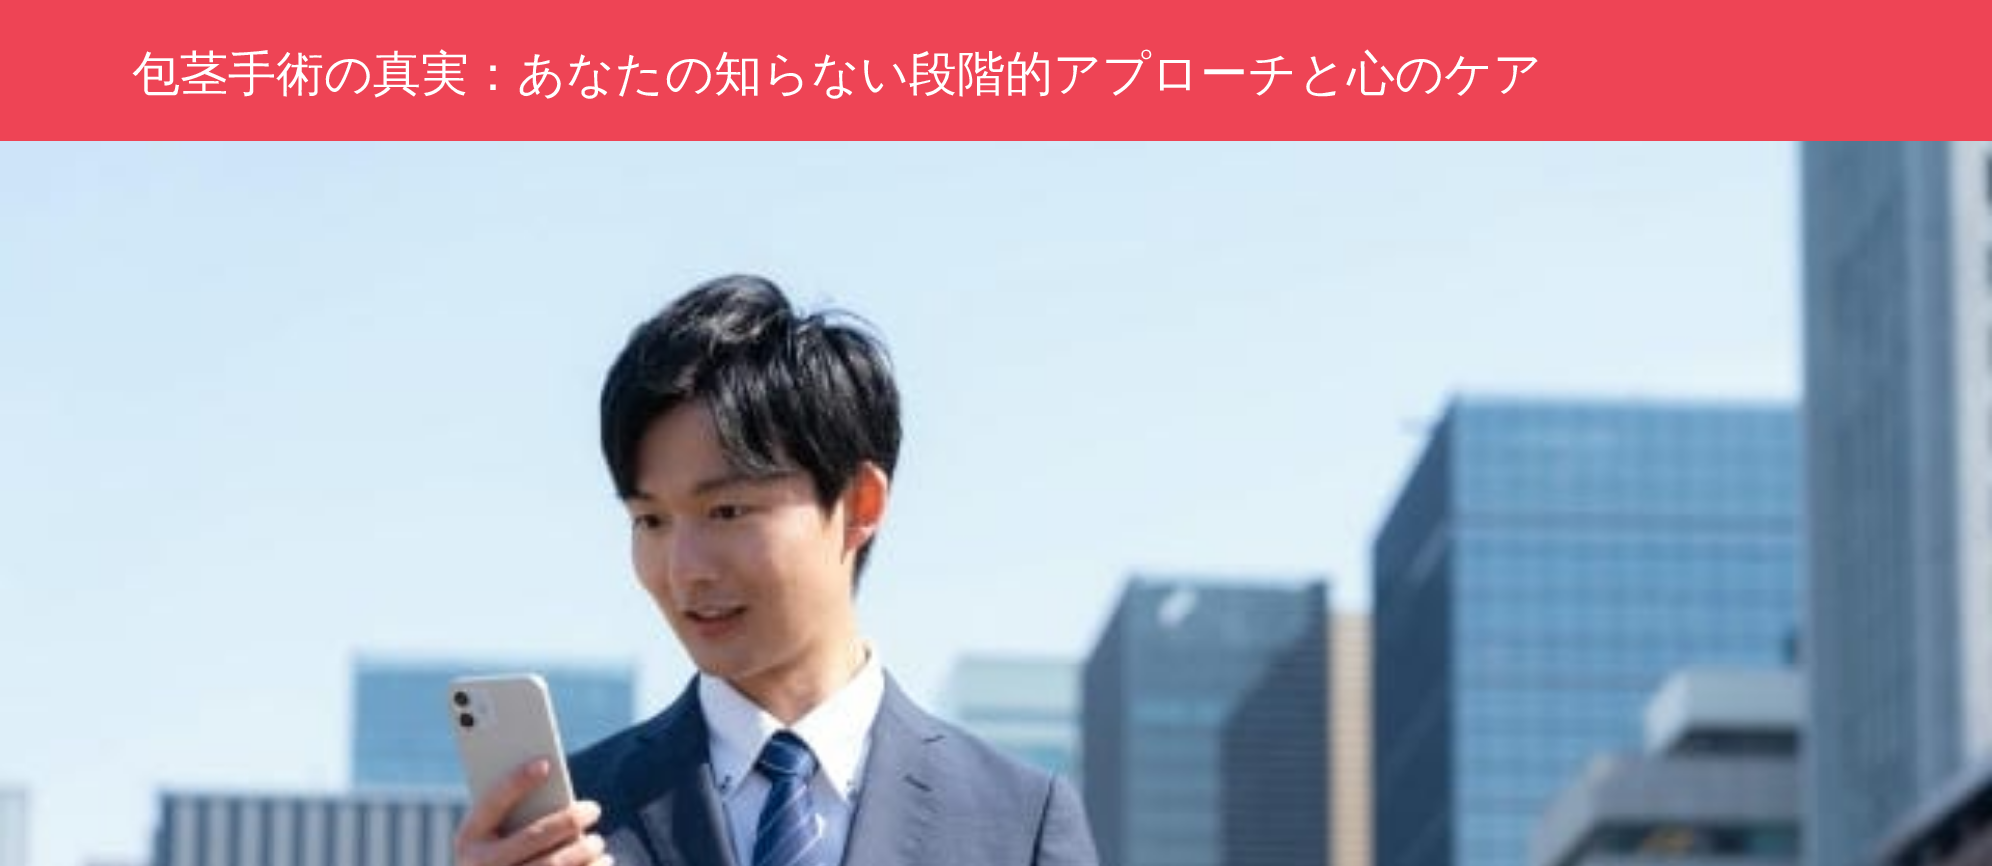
%!PS-Adobe-3.0
%%BoundingBox: 0 0 1992 866
%%LanguageLevel: 3
%%Pages: 1
%%EndComments
%%BeginProlog
/fn { [ exch dup neg 0 0 3 -1 roll 0 0 ] selectfont } def
/tx { moveto show } def
/bx { rectfill } def
/im { 5 dict begin { /h /w /y /x /name } { exch def } forall
  gsave x y translate w h scale
  w h 8 [w 0 0 h 0 0] name (r) file false 3 colorimage grestore end } def
%%EndProlog
%%BeginSetup
<< /PageSize [1992 866] >> setpagedevice
%%EndSetup
%%Page: 1 1
0 866 translate 1 -1 scale
4 setmiterlimit
0.933 0.267 0.333 setrgbcolor
0 0 1992 866 bx
/WenQuanYiZenHei-Medium 48 fn
1 setgray
(包茎手術の真実：あなたの知らない段階的アプローチと心のケア) 132 90 tx
(image0.raw) 0 141 1992 725 im
showpage
%%EOF
